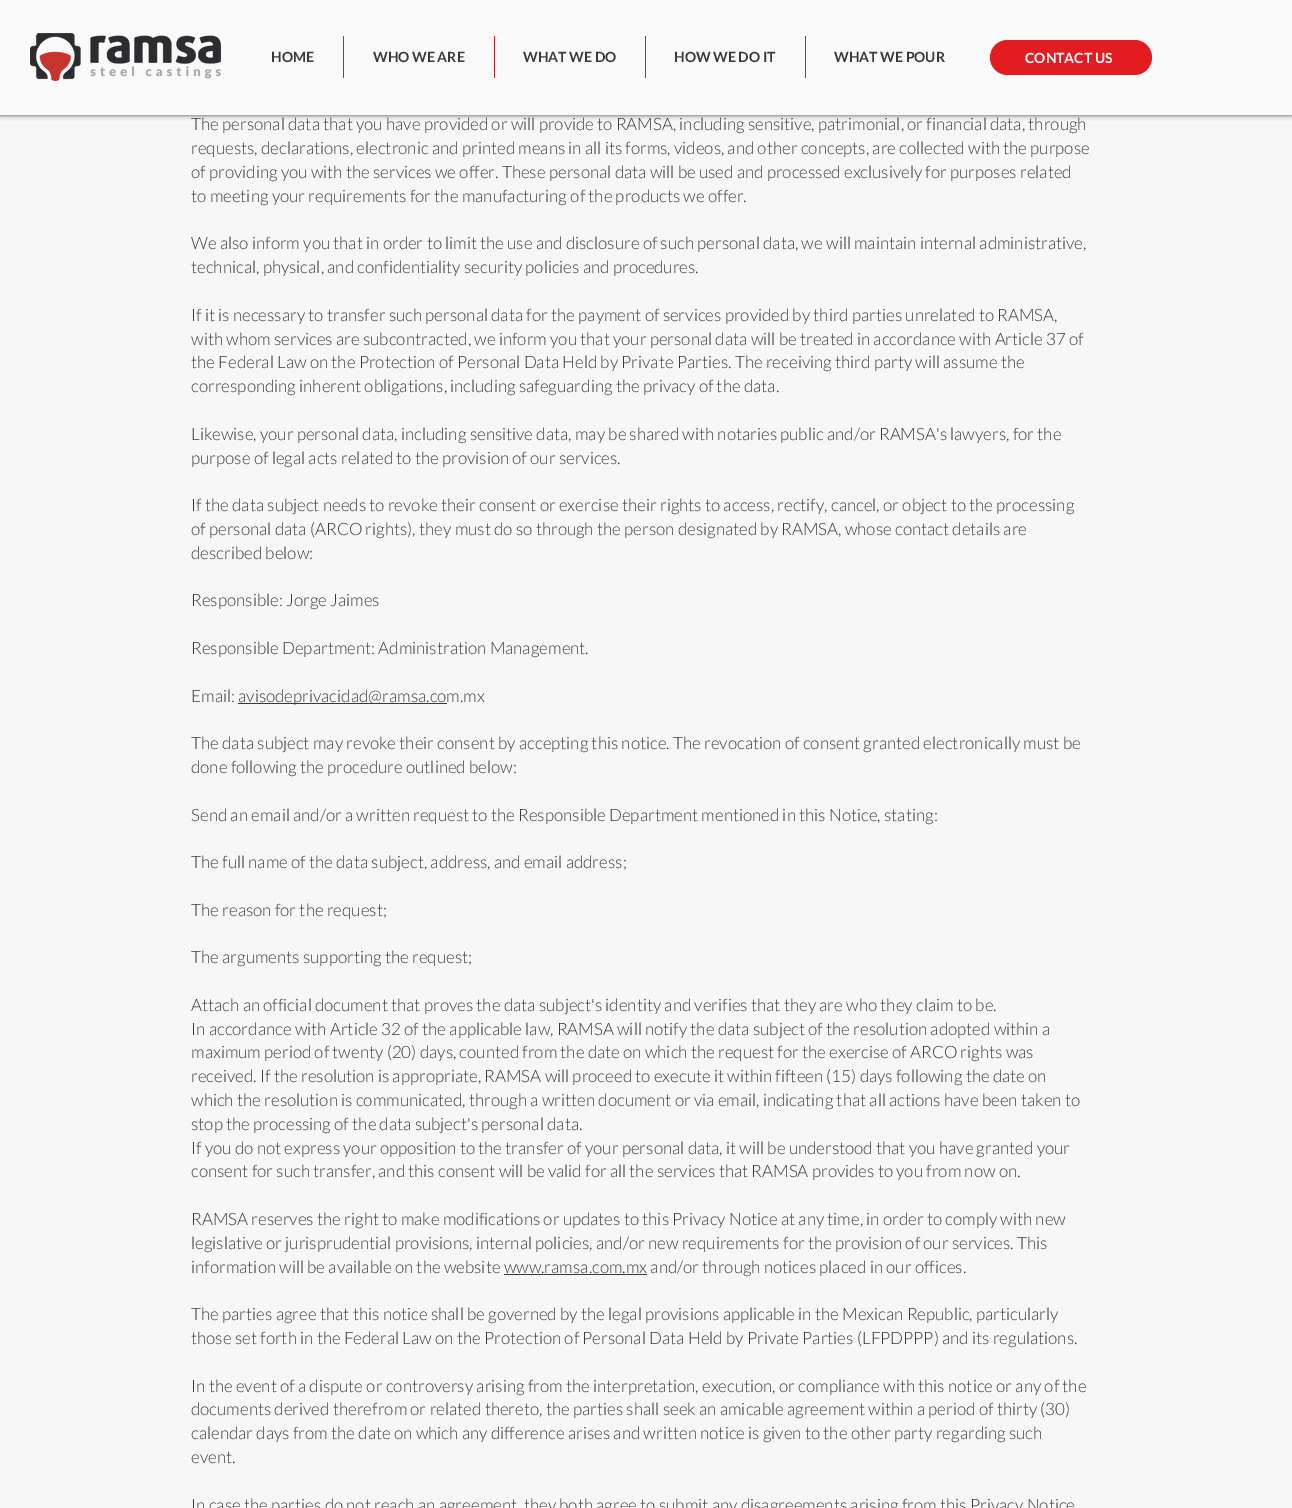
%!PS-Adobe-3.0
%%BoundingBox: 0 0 1292 1508
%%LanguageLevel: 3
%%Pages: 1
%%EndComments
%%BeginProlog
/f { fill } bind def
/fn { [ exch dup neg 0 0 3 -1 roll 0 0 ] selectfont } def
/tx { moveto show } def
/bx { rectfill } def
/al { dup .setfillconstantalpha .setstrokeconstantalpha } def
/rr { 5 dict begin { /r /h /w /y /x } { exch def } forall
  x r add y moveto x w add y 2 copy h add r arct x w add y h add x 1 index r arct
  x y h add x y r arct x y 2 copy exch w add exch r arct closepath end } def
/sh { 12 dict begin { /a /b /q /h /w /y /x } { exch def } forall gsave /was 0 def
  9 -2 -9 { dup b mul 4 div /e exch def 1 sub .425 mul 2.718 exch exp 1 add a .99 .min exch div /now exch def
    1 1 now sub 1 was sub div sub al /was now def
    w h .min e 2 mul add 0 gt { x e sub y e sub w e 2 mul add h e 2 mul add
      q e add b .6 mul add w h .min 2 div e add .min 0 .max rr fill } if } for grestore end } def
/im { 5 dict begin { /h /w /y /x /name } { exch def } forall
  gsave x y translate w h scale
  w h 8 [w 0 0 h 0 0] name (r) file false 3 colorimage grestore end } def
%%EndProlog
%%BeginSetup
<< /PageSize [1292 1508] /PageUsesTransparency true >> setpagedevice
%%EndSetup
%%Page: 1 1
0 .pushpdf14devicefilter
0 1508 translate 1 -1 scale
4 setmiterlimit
0.969 setgray
0 0 1292 1508 bx
0 setgray
0 0 1292 115 0 2.5 0.7 sh
0.98 setgray
0 0 1292 115 bx
/Lato-Bold 14 fn
0.231 0.227 0.227 setrgbcolor
(HOME) 271 62 tx
0.859 0.11 0.122 setrgbcolor
343 36 1 42 bx
0.231 0.227 0.227 setrgbcolor
(WHO WE ARE) 373 62 tx
0.859 0.11 0.122 setrgbcolor
494 36 1 42 bx
0.231 0.227 0.227 setrgbcolor
(WHAT WE DO) 523 62 tx
0.859 0.11 0.122 setrgbcolor
645 36 1 42 bx
0.231 0.227 0.227 setrgbcolor
(HOW WE DO IT) 674 62 tx
0.859 0.11 0.122 setrgbcolor
805 36 1 42 bx
0.231 0.227 0.227 setrgbcolor
(WHAT WE POUR) 834 62 tx
(image0.raw) 30 33 191 48 im
0.886 0.11 0.129 setrgbcolor
990 40 162 35 17.5 rr f
1 setgray
(CONTACT US) 1025 63 tx
/Lato-Light 17 fn
0.231 0.227 0.227 setrgbcolor
(The personal data that you have provided or will provide to RAMSA, including sensitive, patrimonial, or financial data, through) 191 130 tx
(requests, declarations, electronic and printed means in all its forms, videos, and other concepts, are collected with the purpose) 191 154 tx
(of providing you with the services we offer. These personal data will be used and processed exclusively for purposes related) 191 178 tx
(to meeting your requirements for the manufacturing of the products we offer.) 191 202 tx
(We also inform you that in order to limit the use and disclosure of such personal data, we will maintain internal administrative,) 191 249 tx
(technical, physical, and confidentiality security policies and procedures.) 191 273 tx
(If it is necessary to transfer such personal data for the payment of services provided by third parties unrelated to RAMSA,) 191 321 tx
(with whom services are subcontracted, we inform you that your personal data will be treated in accordance with Article 37 of) 191 345 tx
(the Federal Law on the Protection of Personal Data Held by Private Parties. The receiving third party will assume the) 191 368 tx
(corresponding inherent obligations, including safeguarding the privacy of the data.) 191 392 tx
(Likewise, your personal data, including sensitive data, may be shared with notaries public and/or RAMSA's lawyers, for the) 191 440 tx
(purpose of legal acts related to the provision of our services.) 191 464 tx
(If the data subject needs to revoke their consent or exercise their rights to access, rectify, cancel, or object to the processing) 191 511 tx
(of personal data \(ARCO rights\), they must do so through the person designated by RAMSA, whose contact details are) 191 535 tx
(described below:) 191 559 tx
(Responsible: Jorge Jaimes) 191 606 tx
(Responsible Department: Administration Management.) 191 654 tx
(Email:) 191 702 tx
238 703 209 1 bx
(avisodeprivacidad@ramsa.com.mx) 238 702 tx
(The data subject may revoke their consent by accepting this notice. The revocation of consent granted electronically must be) 191 749 tx
(done following the procedure outlined below:) 191 773 tx
(Send an email and/or a written request to the Responsible Department mentioned in this Notice, stating:) 191 821 tx
(The full name of the data subject, address, and email address;) 191 868 tx
(The reason for the request;) 191 916 tx
(The arguments supporting the request;) 191 963 tx
(Attach an official document that proves the data subject's identity and verifies that they are who they claim to be.) 191 1011 tx
(In accordance with Article 32 of the applicable law, RAMSA will notify the data subject of the resolution adopted within a) 191 1035 tx
(maximum period of twenty \(20\) days, counted from the date on which the request for the exercise of ARCO rights was) 191 1058 tx
(received. If the resolution is appropriate, RAMSA will proceed to execute it within fifteen \(15\) days following the date on) 191 1082 tx
(which the resolution is communicated, through a written document or via email, indicating that all actions have been taken to) 191 1106 tx
(stop the processing of the data subject's personal data.) 191 1130 tx
(If you do not express your opposition to the transfer of your personal data, it will be understood that you have granted your) 191 1154 tx
(consent for such transfer, and this consent will be valid for all the services that RAMSA provides to you from now on.) 191 1177 tx
(RAMSA reserves the right to make modifications or updates to this Privacy Notice at any time, in order to comply with new) 191 1225 tx
(legislative or jurisprudential provisions, internal policies, and/or new requirements for the provision of our services. This) 191 1249 tx
(information will be available on the website www.ramsa.com.mx and/or through notices placed in our offices.) 191 1273 tx
504 1274 143 1 bx
(The parties agree that this notice shall be governed by the legal provisions applicable in the Mexican Republic, particularly) 191 1320 tx
(those set forth in the Federal Law on the Protection of Personal Data Held by Private Parties \(LFPDPPP\) and its regulations.) 191 1344 tx
(In the event of a dispute or controversy arising from the interpretation, execution, or compliance with this notice or any of the) 191 1392 tx
(documents derived therefrom or related thereto, the parties shall seek an amicable agreement within a period of thirty \(30\)) 191 1415 tx
(calendar days from the date on which any difference arises and written notice is given to the other party regarding such) 191 1439 tx
(event.) 191 1463 tx
(In case the parties do not reach an agreement, they both agree to submit any disagreements arising from this Privacy Notice) 191 1511 tx
.poppdf14devicefilter showpage
%%EOF
